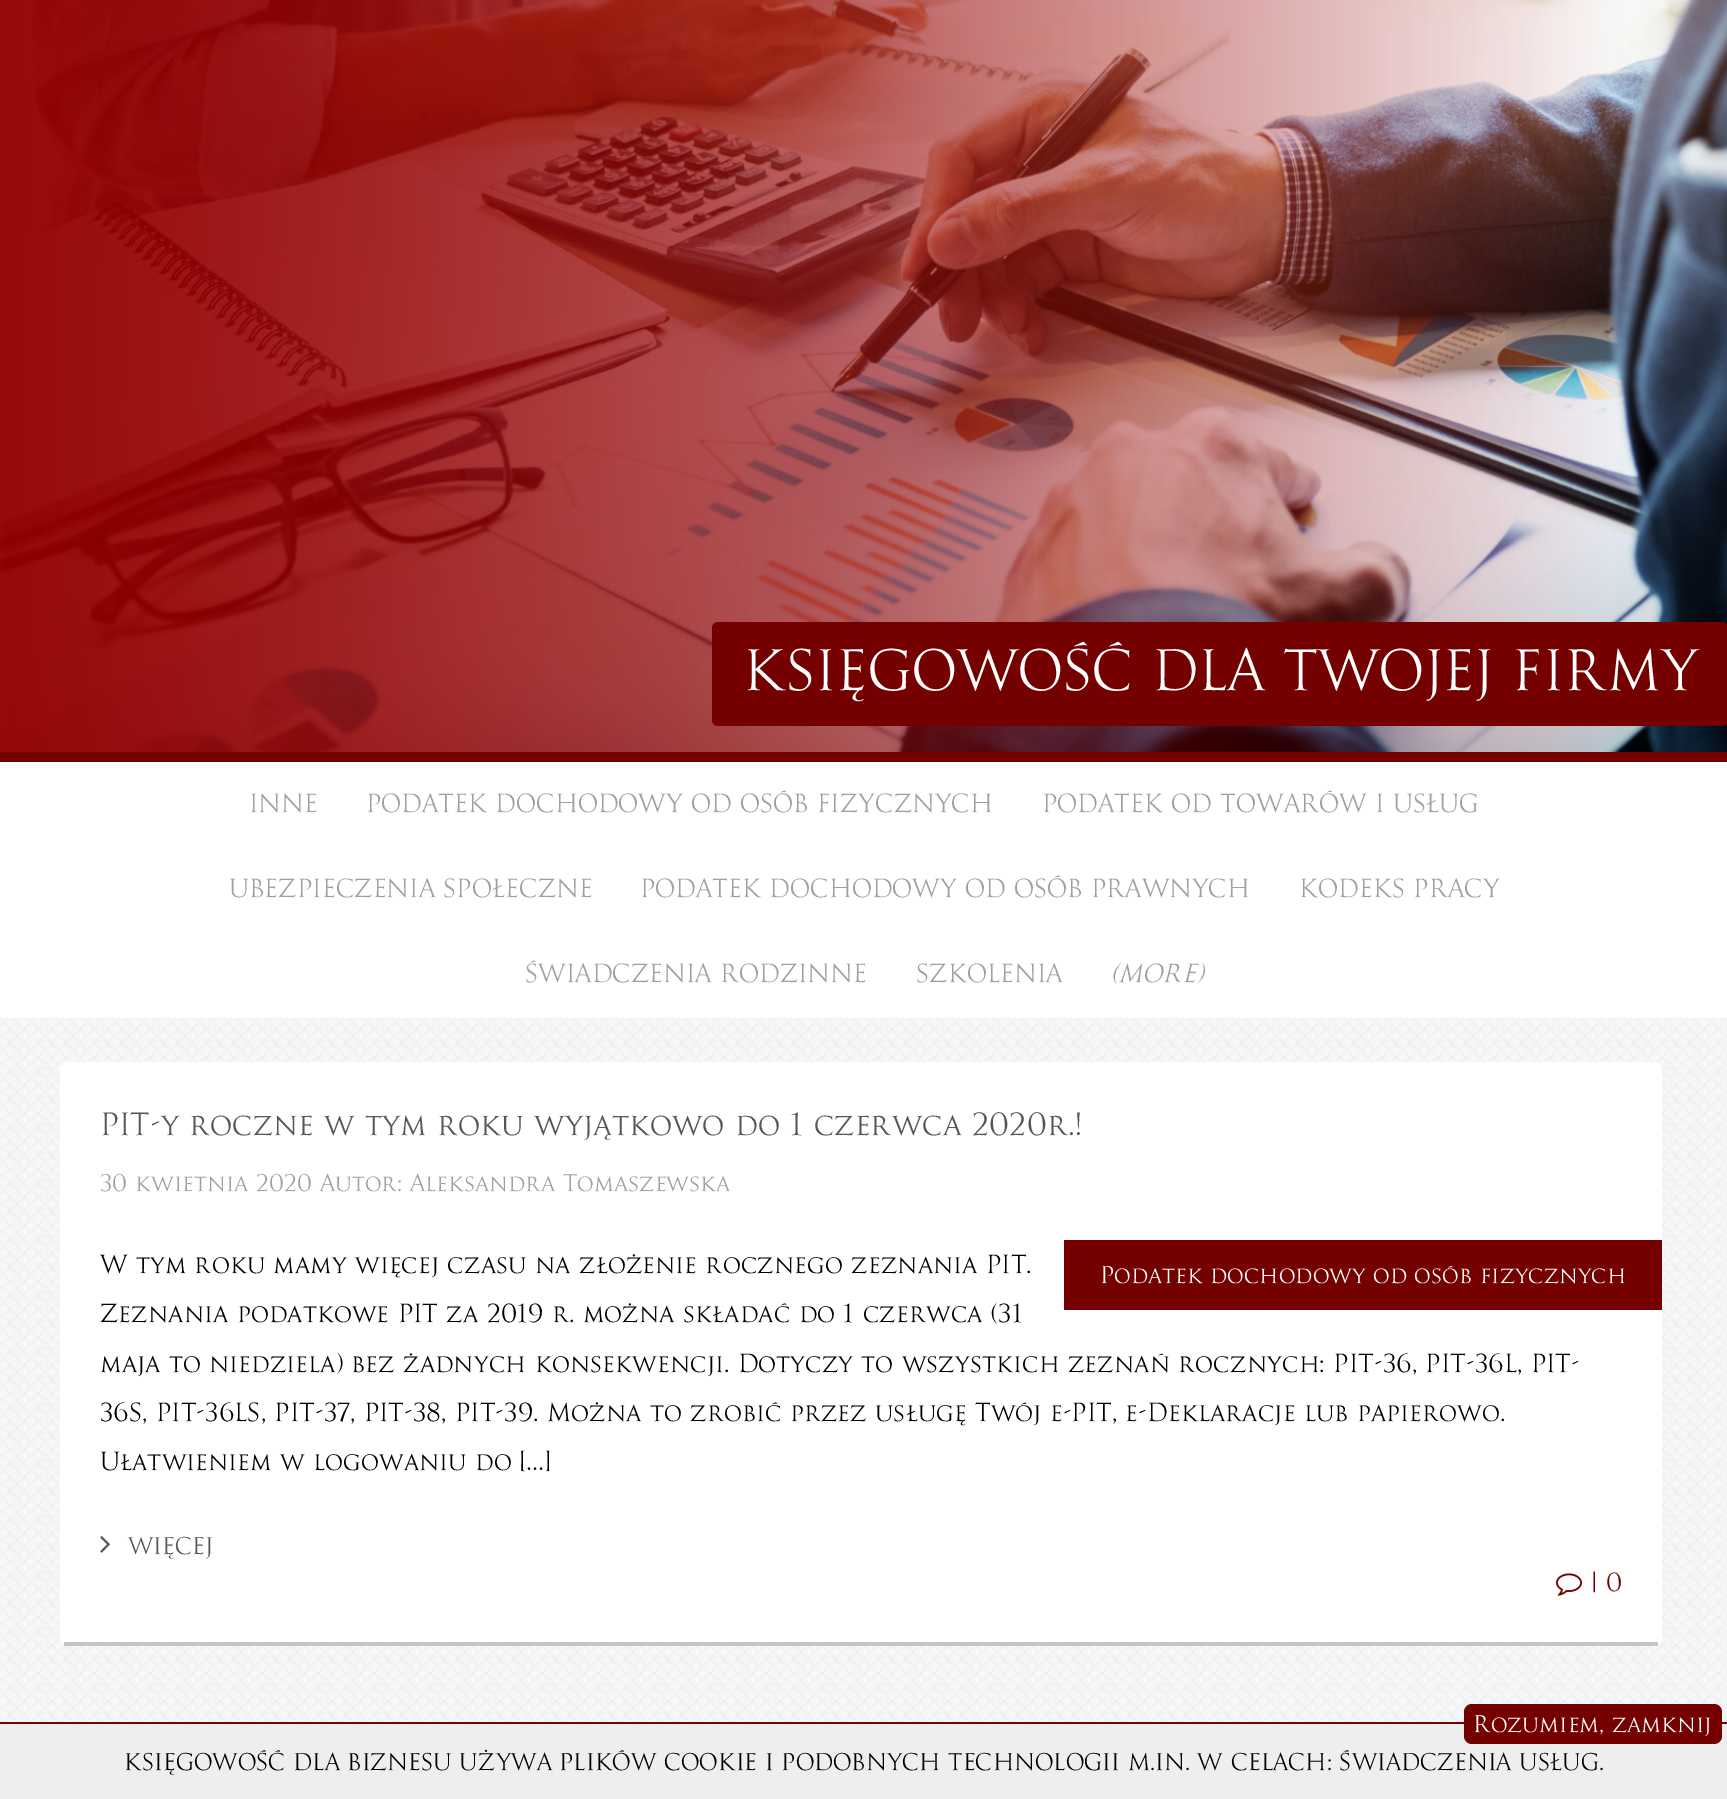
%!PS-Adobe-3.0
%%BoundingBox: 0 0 1727 1799
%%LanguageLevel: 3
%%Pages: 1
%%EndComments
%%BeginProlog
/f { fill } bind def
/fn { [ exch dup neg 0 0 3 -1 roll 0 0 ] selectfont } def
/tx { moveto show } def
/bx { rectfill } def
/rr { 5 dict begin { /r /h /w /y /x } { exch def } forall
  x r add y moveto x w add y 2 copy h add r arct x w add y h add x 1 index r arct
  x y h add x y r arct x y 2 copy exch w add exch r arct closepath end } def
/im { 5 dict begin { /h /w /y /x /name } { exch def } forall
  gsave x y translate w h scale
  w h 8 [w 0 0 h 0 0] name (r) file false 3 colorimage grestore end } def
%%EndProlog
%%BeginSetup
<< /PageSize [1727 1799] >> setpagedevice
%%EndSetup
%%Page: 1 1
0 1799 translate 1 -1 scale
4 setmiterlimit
1 setgray
0 0 1727 1799 bx
0.455 0 0 setrgbcolor
0 752 1727 10 bx
(image0.raw) 0 0 1727 752 im
712 622 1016 104 6 rr f
/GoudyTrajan-Regular 58 fn
1 setgray
(KSIĘGOWOŚĆ DLA TWOJEJ FIRMY) 743 690 tx
/GoudyTrajan-Regular 26 fn
0.624 setgray
(INNE) 249 812 tx
(PODATEK DOCHODOWY OD OSÓB FIZYCZNYCH) 366 812 tx
(PODATEK OD TOWARÓW I USŁUG) 1042 812 tx
(UBEZPIECZENIA SPOŁECZNE) 229 897 tx
(PODATEK DOCHODOWY OD OSÓB PRAWNYCH) 640 897 tx
(KODEKS PRACY) 1299 897 tx
(ŚWIADCZENIA RODZINNE) 525 982 tx
(SZKOLENIA) 916 982 tx
/GoudyTrajan-Italic 26 fn
(\(MORE\)) 1111 982 tx
0.949 0.957 0.961 setrgbcolor
1726 1018 1 704 bx
(image1.raw) 0 1018 1726 704 im
1 setgray
60 1062 1602 584 8 rr f
0.765 0.773 0.776 setrgbcolor
64 1642 1594 4 bx
/GoudyTrajan-Regular 32 fn
0.337 setgray
(PIT-y roczne w tym roku wyjątkowo do 1 czerwca 2020r.!) 100 1135 tx
/GoudyTrajan-Regular 24 fn
0.624 setgray
(30 kwietnia 2020 Autor: Aleksandra Tomaszewska) 100 1191 tx
/GoudyTrajan-Regular 26 fn
0 setgray
(W tym roku mamy więcej czasu na złożenie rocznego zeznania PIT.) 100 1273 tx
(Zeznania podatkowe PIT za 2019 r. można składać do 1 czerwca \(31) 100 1322 tx
(maja to niedziela\) bez żadnych konsekwencji. Dotyczy to wszystkich zeznań rocznych: PIT-36, PIT-36L, PIT-) 100 1372 tx
(36S, PIT-36LS, PIT-37, PIT-38, PIT-39. Można to zrobić przez usługę Twój e-PIT, e-Deklaracje lub papierowo.) 100 1421 tx
(Ułatwieniem w logowaniu do […]) 100 1470 tx
0.455 0 0 setrgbcolor
1064 1240 598 70 bx
/GoudyTrajan-Regular 24 fn
1 setgray
(Podatek dochodowy od osób fizycznych) 1100 1283 tx
(image2.raw) 100 1536 10 17 im
0.337 setgray
(WIĘCEJ) 128 1554 tx
(image3.raw) 1556 1573 26 23 im
/GoudyTrajan-Regular 26 fn
0.455 0 0 setrgbcolor
(| 0) 1591 1591 tx
0.933 setgray
0 1724 1727 75 bx
0.455 0 0 setrgbcolor
0 1722 1727 2 bx
1464 1704 258 40 8 rr f
/GoudyTrajan-Regular 24 fn
1 setgray
(Rozumiem, zamknij) 1473 1732 tx
0 setgray
(KSIĘGOWOŚĆ DLA BIZNESU UŻYWA PLIKÓW COOKIE I PODOBNYCH TECHNOLOGII M.IN. W CELACH: ŚWIADCZENIA USŁUG.) 124 1770 tx
showpage
%%EOF
